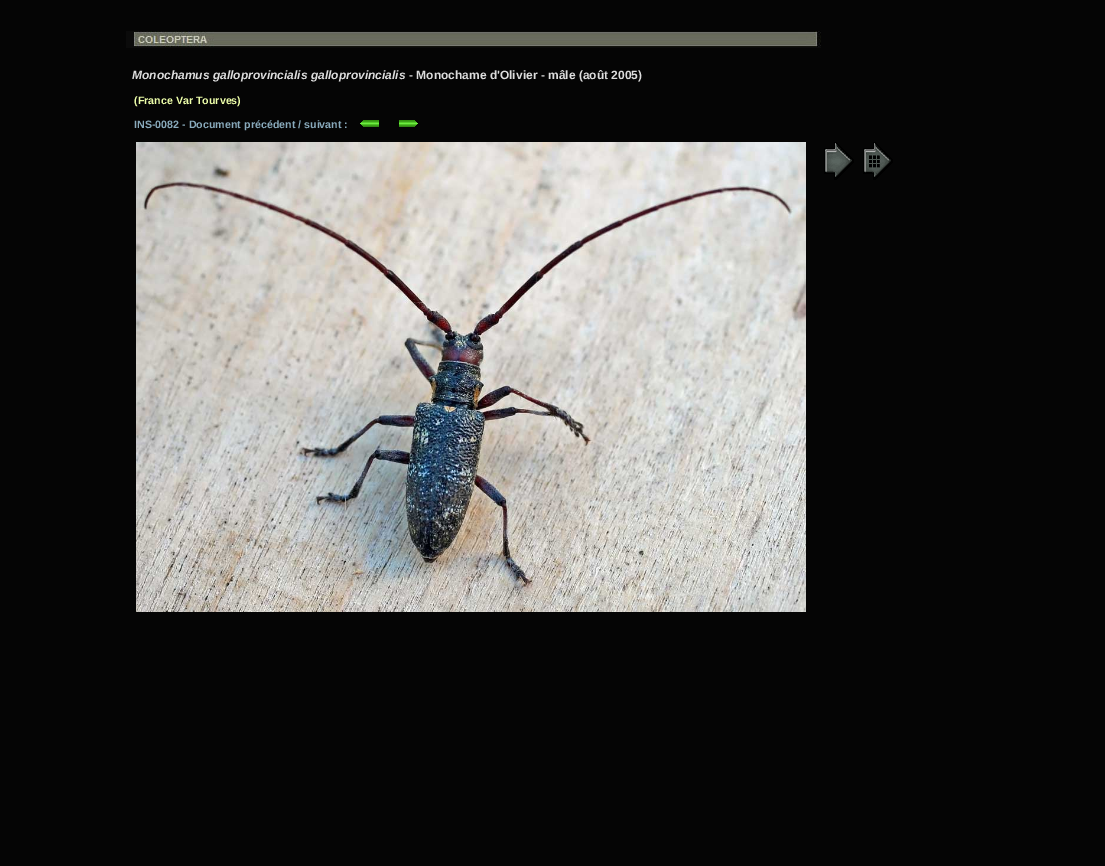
%!PS-Adobe-3.0
%%BoundingBox: 0 0 1105 866
%%LanguageLevel: 3
%%Pages: 1
%%EndComments
%%BeginProlog
/fn { [ exch dup neg 0 0 3 -1 roll 0 0 ] selectfont } def
/tx { moveto show } def
/bx { rectfill } def
/im { 5 dict begin { /h /w /y /x /name } { exch def } forall
  gsave x y translate w h scale
  w h 8 [w 0 0 h 0 0] name (r) file false 3 colorimage grestore end } def
%%EndProlog
%%BeginSetup
<< /PageSize [1105 866] >> setpagedevice
%%EndSetup
%%Page: 1 1
0 866 translate 1 -1 scale
4 setmiterlimit
0.02 setgray
0 0 1105 866 bx
(image0.raw) 126 31 695 17 im
/LiberationSans-BoldItalic 12 fn
0.867 setgray
(Monochamus galloprovincialis galloprovincialis) 132 79 tx
/LiberationSans-Bold 12 fn
(- Monochame d'Olivier - mâle \(août 2005\)) 409 79 tx
/LiberationSans-Bold 10.7 fn
0.933 1 0.667 setrgbcolor
(\(France Var Tourves\)) 134 104 tx
0.537 0.667 0.737 setrgbcolor
(INS-0082 - Document précédent / suivant :) 134 128 tx
(image1.raw) 360 120 19 7 im
(image2.raw) 399 120 19 7 im
(image3.raw) 136 142 670 470 im
(image4.raw) 824 142 30 38 im
(image5.raw) 863 142 30 38 im
showpage
%%EOF
